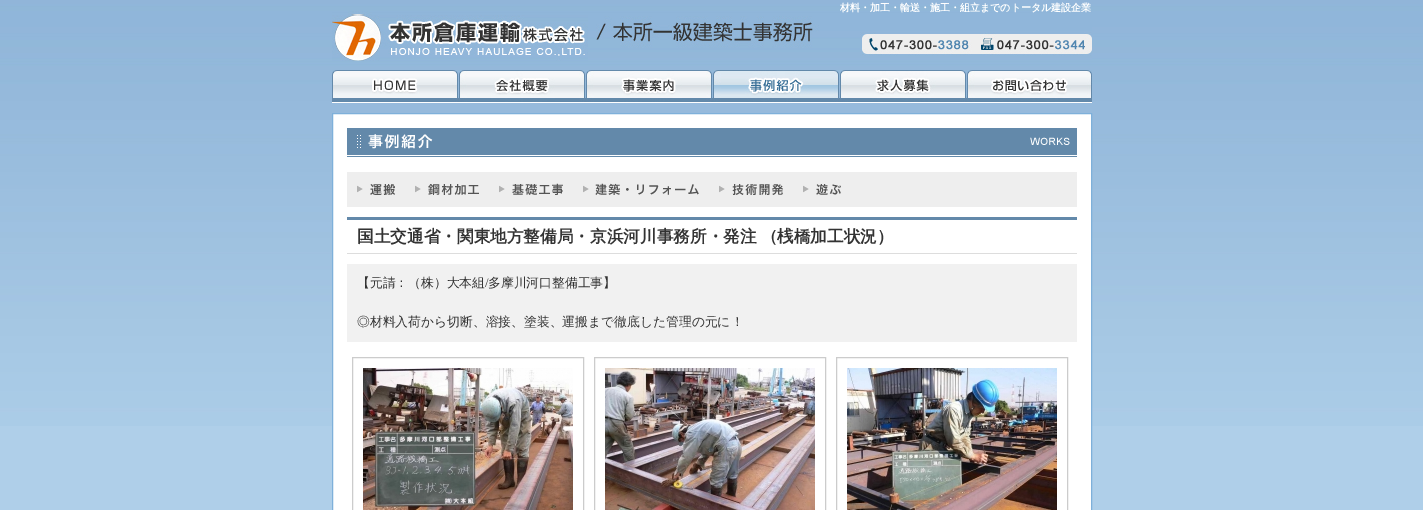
%!PS-Adobe-3.0
%%BoundingBox: 0 0 1423 510
%%LanguageLevel: 3
%%Pages: 1
%%EndComments
%%BeginProlog
/m { moveto } bind def
/l { lineto } bind def
/h { closepath } bind def
/f { fill } bind def
/S { stroke } bind def
/q { gsave } bind def
/Q { grestore } bind def
/fn { [ exch dup neg 0 0 3 -1 roll 0 0 ] selectfont } def
/tx { moveto show } def
/bx { rectfill } def
/im { 5 dict begin { /h /w /y /x /name } { exch def } forall
  gsave x y translate w h scale
  w h 8 [w 0 0 h 0 0] name (r) file false 3 colorimage grestore end } def
%%EndProlog
%%BeginSetup
<< /PageSize [1423 510] >> setpagedevice
%%EndSetup
%%Page: 1 1
0 510 translate 1 -1 scale
4 setmiterlimit
0.686 0.812 0.914 setrgbcolor
0 0 1423 510 bx
(image0.raw) 0 0 1423 426 im
(image1.raw) 332 11 760 49 im
/WenQuanYiZenHei-Bold 10 fn
1 setgray
(材料・加工・輸送・施工・組立までのトータル建設企業) 840 11 tx
(image2.raw) 332 15 256 46 im
(image3.raw) 332 70 127 33 im
(image4.raw) 459 70 127 33 im
(image5.raw) 586 70 127 33 im
(image6.raw) 713 70 127 33 im
(image7.raw) 840 70 127 33 im
(image8.raw) 967 70 125 33 im
332.5 113.5 m 1091.5 113.5 l 1091.5 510.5 l 332.5 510.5 l h q f Q
0.494 0.69 0.855 setrgbcolor
S
(image9.raw) 347 128 730 29 im
0.933 setgray
347 172 730 35 bx
(image10.raw) 357 184 38 11 im
(image11.raw) 415 184 64 11 im
(image12.raw) 499 183 64 12 im
(image13.raw) 583 183 116 12 im
(image14.raw) 719 184 64 11 im
(image15.raw) 803 184 38 11 im
0.388 0.537 0.667 setrgbcolor
347 217 730 3 bx
0.867 setgray
347 253 730 1 bx
/WenQuanYiZenHei-Bold 16.65 fn
0.2 setgray
357 242 m -1 0 32 (国土交通省・関東地方整備局・京浜河川事務所・発注 （桟橋加工状況）) widthshow
0.945 setgray
347 264 730 78 bx
/WenQuanYiZenHei-Medium 12.8 fn
0.2 setgray
(【元請：（株）大本組) 357 287 tx
/LiberationSerif-Regular 12.8 fn
(/) 485 287 tx
/WenQuanYiZenHei-Medium 12.8 fn
(多摩川河口整備工事】) 488 287 tx
(◎材料入荷から切断、溶接、塗装、運搬まで徹底した管理の元に！) 357 326 tx
0.8 setgray
352.5 357.5 231 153 rectstroke
(image16.raw) 363 368 210 142 im
594.5 357.5 231 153 rectstroke
(image17.raw) 605 368 210 142 im
836.5 357.5 231 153 rectstroke
(image18.raw) 847 368 210 142 im
showpage
%%EOF
